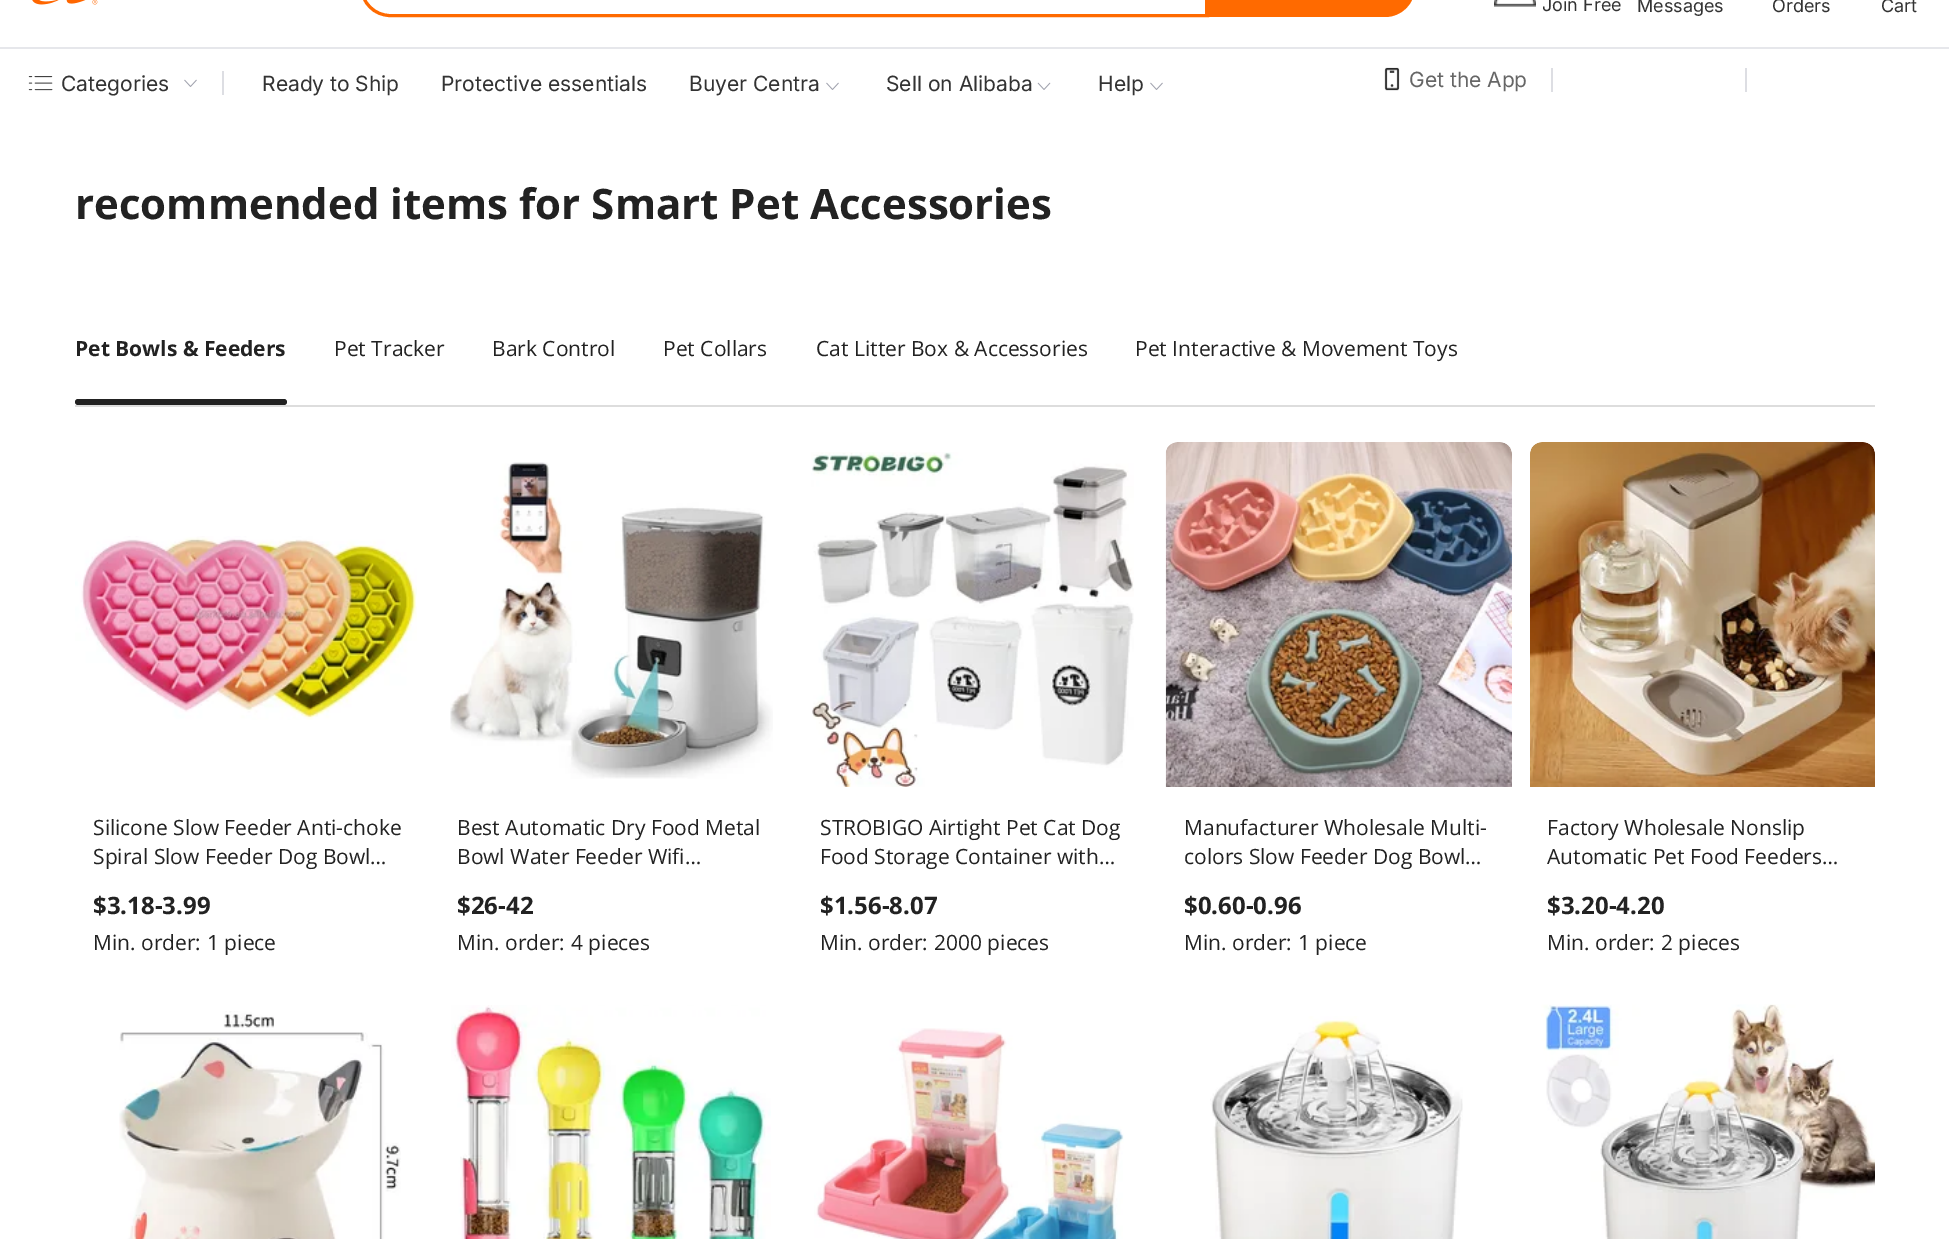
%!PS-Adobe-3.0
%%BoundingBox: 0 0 1949 1239
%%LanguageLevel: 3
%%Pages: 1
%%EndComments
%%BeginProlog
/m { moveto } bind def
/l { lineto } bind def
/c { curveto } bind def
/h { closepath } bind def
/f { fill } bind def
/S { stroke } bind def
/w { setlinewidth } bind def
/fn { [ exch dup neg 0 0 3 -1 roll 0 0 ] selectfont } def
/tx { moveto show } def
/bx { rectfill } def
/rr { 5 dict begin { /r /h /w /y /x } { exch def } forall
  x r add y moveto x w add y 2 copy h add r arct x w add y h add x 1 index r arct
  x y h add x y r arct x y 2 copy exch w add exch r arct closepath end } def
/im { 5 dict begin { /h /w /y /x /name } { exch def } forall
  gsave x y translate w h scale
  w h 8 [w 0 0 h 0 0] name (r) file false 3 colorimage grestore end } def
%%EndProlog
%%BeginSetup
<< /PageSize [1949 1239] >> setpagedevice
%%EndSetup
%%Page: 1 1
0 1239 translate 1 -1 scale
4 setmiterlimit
1 setgray
0 0 1949 1239 bx
(image0.raw) 32 0 66 5 im
1 0.416 0 setrgbcolor
3 w
390 -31.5 m 1207.5 -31.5 l 1207.5 15.5 l 390 15.5 l 374.5 15.5 361.5 2.5 361.5 -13 c 361.5 -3 l 361.5 -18.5 374.5 -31.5 390 -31.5 c h S
1205 -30 m 1385 -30 l 1401.5 -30 1415 -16.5 1415 0 c 1415 -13 l 1415 3.5 1401.5 17 1385 17 c 1205 17 l h f
(image1.raw) 1494 0 42 7 im
/Inter-Regular 18 fn
0.2 setgray
(Join Free) 1542 11 tx
(Messages) 1637 12 tx
(Orders) 1772 12 tx
(Cart) 1881 12 tx
0.902 0.906 0.922 setrgbcolor
0 47 1949 2 bx
(image2.raw) 28 76 25 15 im
/Inter-Regular 21 fn
0.2 setgray
(Categories) 61 91 tx
(image3.raw) 184 79 13 8 im
0.867 0.871 0.89 setrgbcolor
222 71 2 24 bx
0.2 setgray
(Ready to Ship) 262 91 tx
(Protective essentials) 441 91 tx
(Buyer Centra) 689 91 tx
(image3.raw) 826 82 13 8 im
(Sell on Alibaba) 886 91 tx
(image4.raw) 1037 82 14 8 im
(Help) 1098 91 tx
(image3.raw) 1150 82 13 8 im
(image5.raw) 1384 67 16 24 im
0.4 setgray
(Get the App) 1409 87 tx
0.867 0.871 0.89 setrgbcolor
1551 68 2 24 bx
1745 68 2 24 bx
/OpenSans-Bold 42 fn
0.133 setgray
(recommended items for Smart Pet Accessories) 75 219 tx
0.867 setgray
75 405 1800 2 bx
/OpenSans-Bold 21 fn
0.133 setgray
(Pet Bowls & Feeders) 75 356 tx
75 399 212 6 3 rr f
/OpenSans-Regular 21 fn
(Pet Tracker) 334 356 tx
(Bark Control) 492 356 tx
(Pet Collars) 663 356 tx
(Cat Litter Box & Accessories) 816 356 tx
(Pet Interactive & Movement Toys) 1135 356 tx
(image6.raw) 75 536 342 184 im
(Silicone Slow Feeder Anti-choke) 93 835 tx
(Spiral Slow Feeder Dog Bowl…) 93 864 tx
/OpenSans-Bold 24 fn
($3.18-3.99) 93 914 tx
/OpenSans-Regular 21 fn
(Min. order:) 93 950 tx
(1 piece) 207 950 tx
(image7.raw) 119 1011 282 228 im
(image8.raw) 450 462 323 317 im
(Best Automatic Dry Food Metal) 457 835 tx
(Bowl Water Feeder Wifi…) 457 864 tx
/OpenSans-Bold 24 fn
($26-42) 457 914 tx
/OpenSans-Regular 21 fn
(Min. order:) 457 950 tx
(4 pieces) 571 950 tx
(image9.raw) 451 1005 320 234 im
(image10.raw) 811 452 323 335 im
(STROBIGO Airtight Pet Cat Dog) 820 835 tx
(Food Storage Container with…) 820 864 tx
/OpenSans-Bold 24 fn
($1.56-8.07) 820 914 tx
/OpenSans-Regular 21 fn
(Min. order:) 820 950 tx
(2000 pieces) 934 950 tx
(image11.raw) 814 1028 310 211 im
(image12.raw) 1165 442 347 345 im
(Manufacturer Wholesale Multi-) 1184 835 tx
(colors Slow Feeder Dog Bowl…) 1184 864 tx
/OpenSans-Bold 24 fn
($0.60-0.96) 1184 914 tx
/OpenSans-Regular 21 fn
(Min. order:) 1184 950 tx
(1 piece) 1298 950 tx
(image13.raw) 1210 1016 253 223 im
(image14.raw) 1530 442 345 345 im
(Factory Wholesale Nonslip) 1547 835 tx
(Automatic Pet Food Feeders…) 1547 864 tx
/OpenSans-Bold 24 fn
($3.20-4.20) 1547 914 tx
/OpenSans-Regular 21 fn
(Min. order:) 1547 950 tx
(2 pieces) 1661 950 tx
(image15.raw) 1541 1004 334 235 im
showpage
%%EOF
